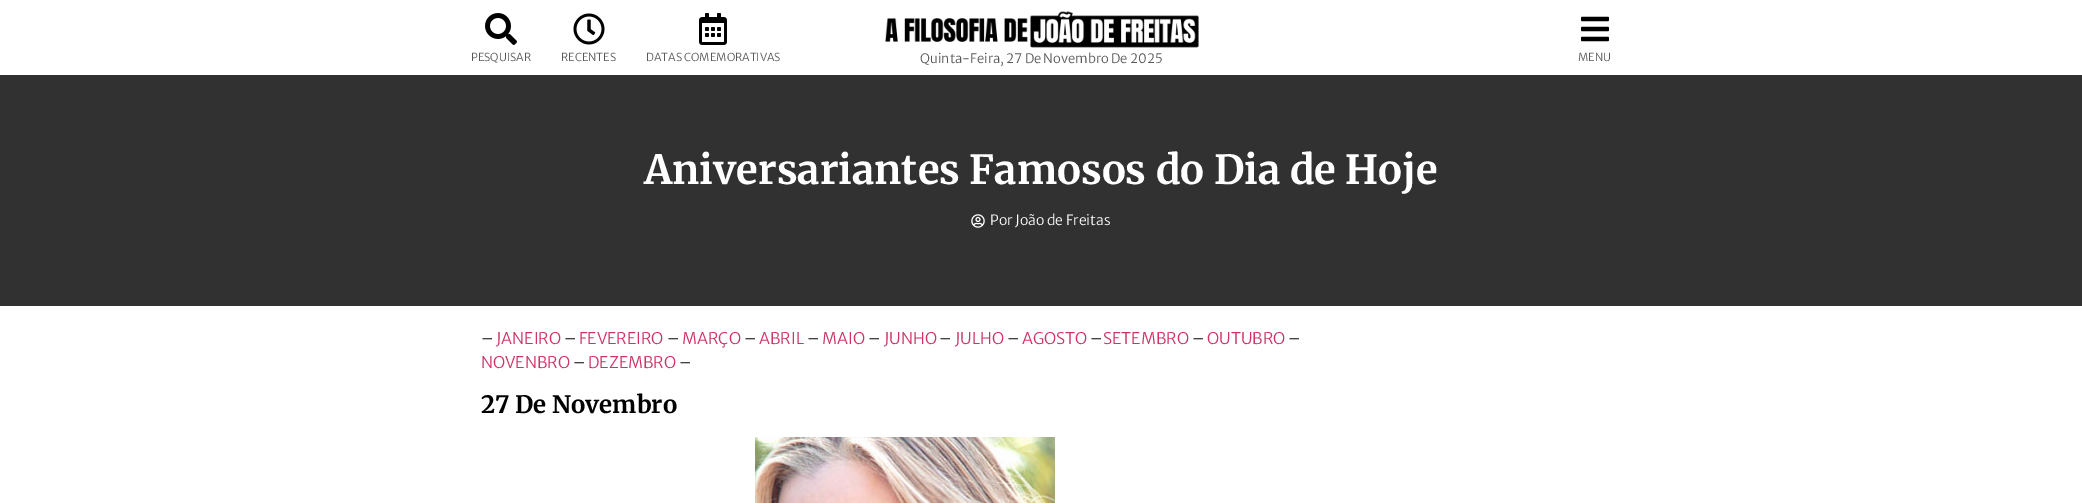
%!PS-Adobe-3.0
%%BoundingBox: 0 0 2082 503
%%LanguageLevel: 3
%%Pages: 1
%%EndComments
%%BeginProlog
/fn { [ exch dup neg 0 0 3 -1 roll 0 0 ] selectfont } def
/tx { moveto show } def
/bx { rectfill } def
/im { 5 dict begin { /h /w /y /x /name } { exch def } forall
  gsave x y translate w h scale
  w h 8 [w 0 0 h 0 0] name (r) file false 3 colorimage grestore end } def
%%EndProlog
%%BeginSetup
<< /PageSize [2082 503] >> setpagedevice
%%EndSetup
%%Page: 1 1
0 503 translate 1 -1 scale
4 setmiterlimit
1 setgray
0 0 2082 503 bx
(image0.raw) 485 13 32 32 im
/MerriweatherSans-Light 11 fn
0.345 setgray
(PESQUISAR) 471 61 tx
(image1.raw) 573 13 32 32 im
(RECENTES) 561 61 tx
(image2.raw) 699 13 28 32 im
(DATAS COMEMORATIVAS) 646 61 tx
(image3.raw) 885 11 314 37 im
/MerriweatherSans-Light 13 fn
(Quinta-Feira, 27 De Novembro De 2025) 920 63 tx
(image4.raw) 1581 16 28 26 im
/MerriweatherSans-Light 11 fn
(MENU) 1578 61 tx
0.192 setgray
0 75 2082 231 bx
/Merriweather-Bold 40 fn
1 setgray
(Aniversariantes Famosos do Dia de Hoje) 644 184 tx
(image5.raw) 971 214 14 14 im
/MerriweatherSans-Light 14 fn
(Por João de Freitas) 990 225 tx
/MerriweatherSans-Light 16 fn
0 setgray
(–) 481 344 tx
0.8 0.2 0.4 setrgbcolor
(JANEIRO) 496 344 tx
0 setgray
(–) 564 344 tx
0.8 0.2 0.4 setrgbcolor
(FEVEREIRO) 579 344 tx
0 setgray
(–) 667 344 tx
0.8 0.2 0.4 setrgbcolor
(MARÇO) 682 344 tx
0 setgray
(–) 744 344 tx
0.8 0.2 0.4 setrgbcolor
(ABRIL) 759 344 tx
0 setgray
(–) 807 344 tx
0.8 0.2 0.4 setrgbcolor
(MAIO) 822 344 tx
0 setgray
(–) 868 344 tx
0.8 0.2 0.4 setrgbcolor
(JUNHO) 884 344 tx
0 setgray
(–) 939 344 tx
0.8 0.2 0.4 setrgbcolor
(JULHO) 955 344 tx
0 setgray
(–) 1007 344 tx
0.8 0.2 0.4 setrgbcolor
(AGOSTO) 1022 344 tx
0 setgray
(–) 1090 344 tx
0.8 0.2 0.4 setrgbcolor
(SETEMBRO) 1103 344 tx
0 setgray
(–) 1192 344 tx
0.8 0.2 0.4 setrgbcolor
(OUTUBRO) 1207 344 tx
0 setgray
(–) 1288 344 tx
0.8 0.2 0.4 setrgbcolor
(NOVENBRO) 481 368 tx
0 setgray
(–) 573 368 tx
0.8 0.2 0.4 setrgbcolor
(DEZEMBRO) 588 368 tx
0 setgray
(–) 679 368 tx
/Merriweather-Bold 24 fn
(27 De Novembro) 481 413 tx
(image6.raw) 755 437 300 66 im
showpage
%%EOF
